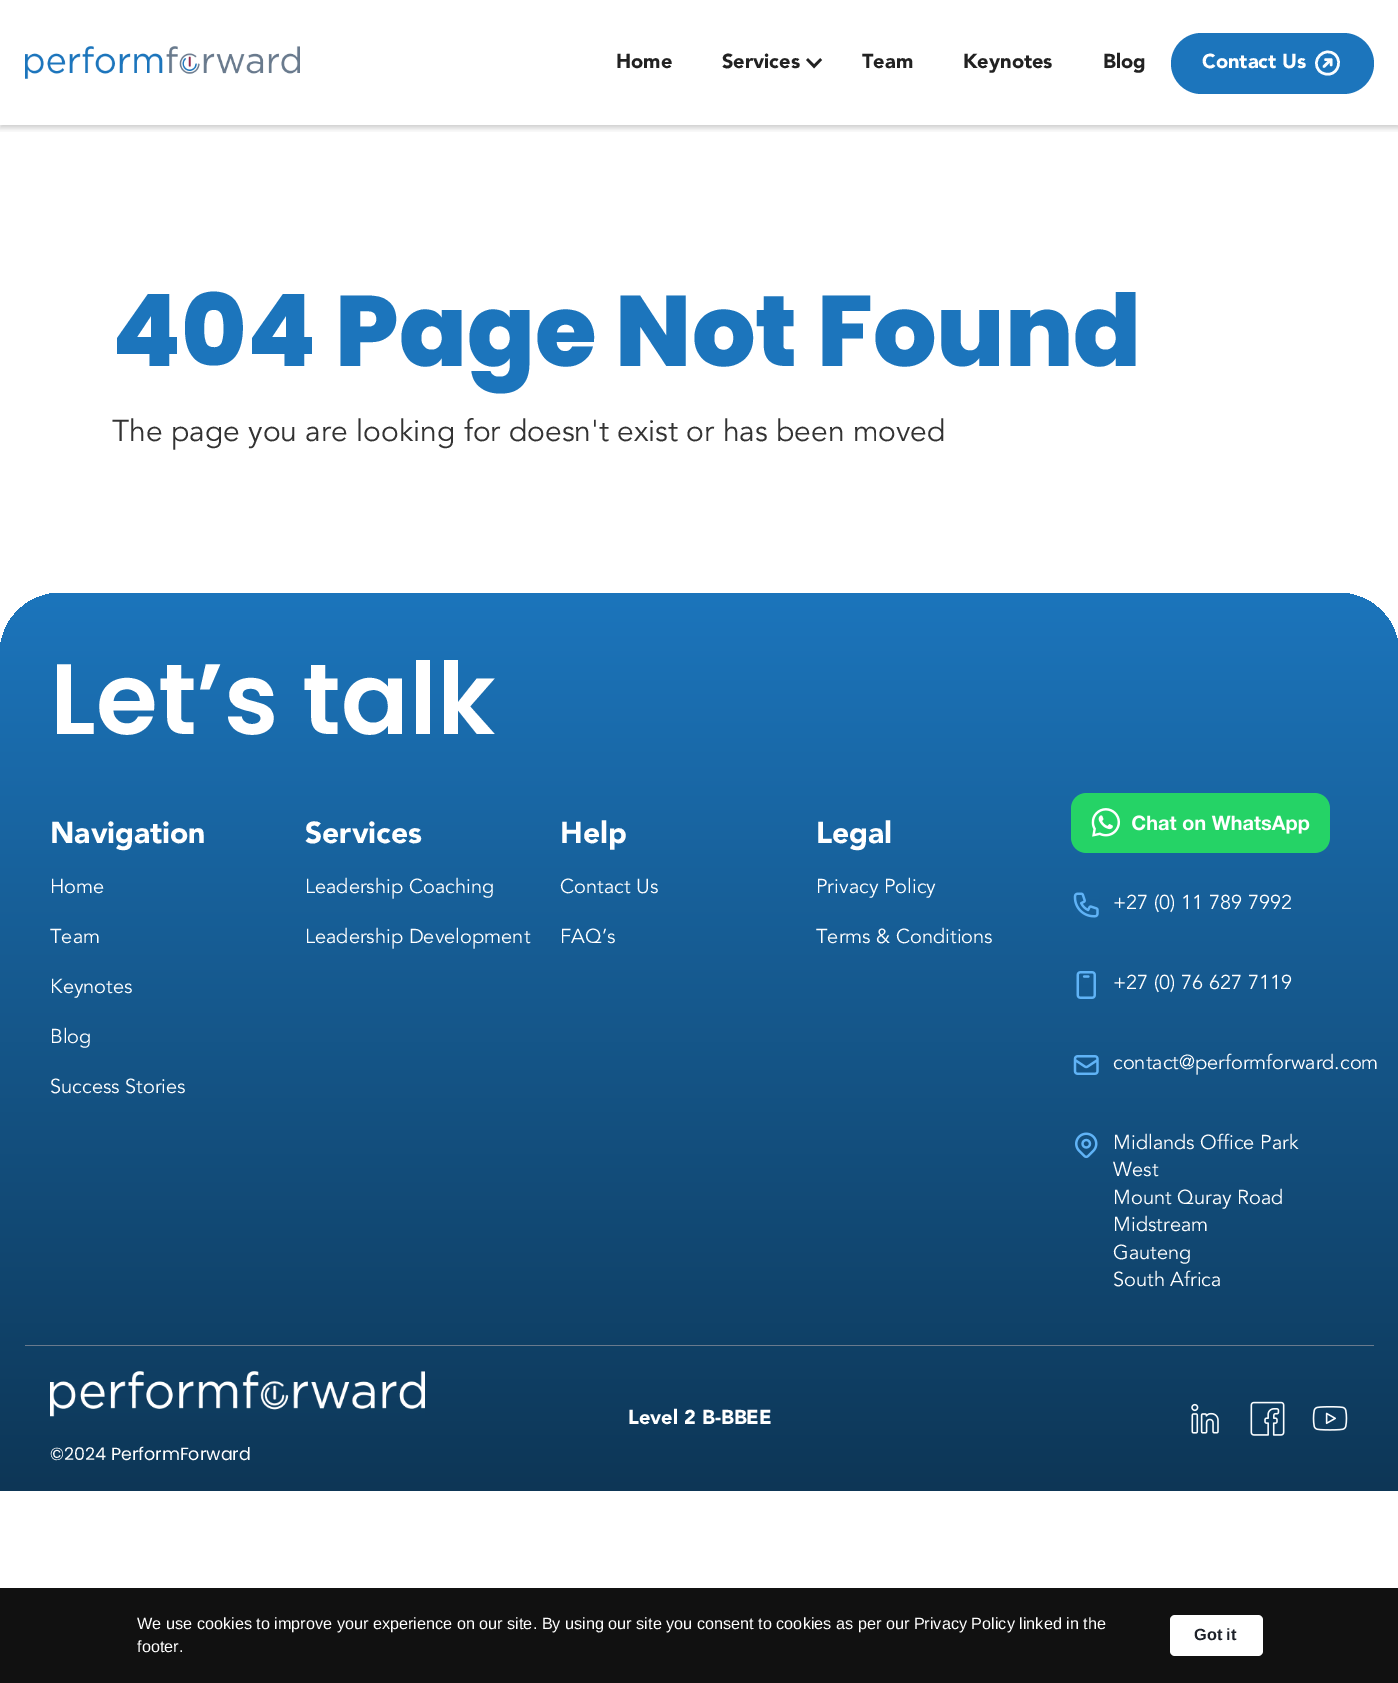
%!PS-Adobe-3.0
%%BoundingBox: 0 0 1398 1683
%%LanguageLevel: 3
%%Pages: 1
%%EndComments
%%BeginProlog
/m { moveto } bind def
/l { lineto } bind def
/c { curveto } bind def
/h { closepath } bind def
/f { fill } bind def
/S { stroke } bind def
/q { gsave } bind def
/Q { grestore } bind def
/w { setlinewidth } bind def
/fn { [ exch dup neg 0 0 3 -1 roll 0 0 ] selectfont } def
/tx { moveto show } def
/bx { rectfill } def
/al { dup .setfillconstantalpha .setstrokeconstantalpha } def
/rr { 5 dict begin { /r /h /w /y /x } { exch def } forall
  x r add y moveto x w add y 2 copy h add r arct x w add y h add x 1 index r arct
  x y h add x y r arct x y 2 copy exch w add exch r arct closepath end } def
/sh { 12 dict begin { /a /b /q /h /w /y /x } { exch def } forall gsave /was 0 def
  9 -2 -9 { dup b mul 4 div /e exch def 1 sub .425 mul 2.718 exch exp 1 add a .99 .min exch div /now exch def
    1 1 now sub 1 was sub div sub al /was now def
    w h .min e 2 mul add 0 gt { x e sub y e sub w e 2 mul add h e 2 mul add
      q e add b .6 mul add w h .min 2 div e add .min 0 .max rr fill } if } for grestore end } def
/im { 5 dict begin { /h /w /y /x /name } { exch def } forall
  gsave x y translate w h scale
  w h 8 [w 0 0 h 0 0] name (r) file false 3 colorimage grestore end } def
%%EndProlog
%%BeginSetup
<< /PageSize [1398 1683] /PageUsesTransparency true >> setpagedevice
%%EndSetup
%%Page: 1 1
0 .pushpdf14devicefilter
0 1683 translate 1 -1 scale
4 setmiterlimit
1 setgray
0 0 1398 1683 bx
q
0 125 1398 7 rectclip
0 setgray
0 3 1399 125 0 3 0.2 sh
Q
(image0.raw) 25 46 275 33 im
/Avenir-Black 20 fn
0.133 setgray
(Home) 616 68 tx
(Services) 722 68 tx
(image1.raw) 806 58 17 11 im
(Team) 862 68 tx
(Keynotes) 963 68 tx
(Blog) 1103 68 tx
0.11 0.459 0.737 setrgbcolor
1171 33 203 61 30.5 rr f
1 setgray
(Contact Us) 1202 68 tx
0.98 0.992 1 setrgbcolor
2.5 w
1 setlinecap
1 setlinejoin
1325.5 59.5 m 1331 59.5 l 1331 59.5 m 1331 65 l 1331 59.5 m 1324 66.5 l 1335.5 55 m 1343 63 1336 76.5 1325.5 74 c 1323 73.5 1321 72.5 1319.5 71 c 1309.5 60.5 1325 45 1335.5 55 c h S
/Poppins-ExtraBold 100 fn
0.11 0.459 0.737 setrgbcolor
(404 Page Not Found) 112 366 tx
/Avenir-Regular 30 fn
0.2 setgray
(The page you are looking for doesn't exist or has been moved) 112 441 tx
q 60 593 m 1339 593 l 1372 593 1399 620 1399 653 c 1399 1491 l 0 1491 l 0 653 l 0 620 27 593 60 593 c h clip newpath
<< /ShadingType 2 /ColorSpace /DeviceRGB /Coords [699 592 699 1491] /Extend [true true] /Function << /FunctionType 2 /Domain [0 1] /C0 [0.11 0.459 0.737] /C1 [0.051 0.212 0.337] /N 1 >> >> shfill Q
/Poppins-SemiBold 100 fn
1 setgray
(Let’s talk) 50 734 tx
/Avenir-Black 30 fn
(Navigation) 50 843 tx
/Avenir-Regular 20 fn
(Home) 50 893 tx
(Team) 50 943 tx
(Keynotes) 50 993 tx
(Blog) 50 1043 tx
(Success Stories) 50 1093 tx
/Avenir-Black 30 fn
(Services) 305 843 tx
/Avenir-Regular 20 fn
(Leadership Coaching) 305 893 tx
(Leadership Development) 305 943 tx
/Avenir-Black 30 fn
(Help) 560 843 tx
/Avenir-Regular 20 fn
(Contact Us) 560 893 tx
(FAQ’s) 560 943 tx
/Avenir-Black 30 fn
(Legal) 816 843 tx
/Avenir-Regular 20 fn
(Privacy Policy) 816 893 tx
(Terms & Conditions) 816 943 tx
(image2.raw) 1071 793 259 60 im
(image3.raw) 1073 892 26 26 im
(+27 \(0\) 11 789 7992) 1113 909 tx
(image4.raw) 1076 971 20 28 im
(+27 \(0\) 76 627 7119) 1113 989 tx
(image5.raw) 1073 1055 26 20 im
(contact@performforward.com) 1113 1069 tx
(image6.raw) 1075 1132 23 27 im
(Midlands Office Park) 1113 1149 tx
(West) 1113 1176 tx
(Mount Quray Road) 1113 1204 tx
(Midstream) 1113 1231 tx
(Gauteng) 1113 1259 tx
(South Africa) 1113 1286 tx
0.412 0.478 0.553 setrgbcolor
25 1345 1349 1 bx
/Avenir-Black 20 fn
1 setgray
(Level 2 B-BBEE) 628 1424 tx
(image7.raw) 1191 1403 28 31 im
(image8.raw) 1250 1401 35 35 im
(image9.raw) 1312 1406 36 25 im
(image10.raw) 50 1371 375 46 im
/Poppins-Regular 17.5 fn
(©2024 PerformForward) 50 1460 tx
0.067 setgray
0 1588 1398 95 bx
/LiberationSans-Regular 16.25 fn
1 setgray
(We use cookies to improve your experience on our site. By using our site you consent to cookies as per our Privacy Policy linked in the) 137 1629 tx
(footer.) 137 1652 tx
1170 1615 93 41 5 rr f
/LiberationSans-Bold 16.25 fn
0.114 0.129 0.161 setrgbcolor
(Got it) 1194 1640 tx
.poppdf14devicefilter showpage
%%EOF
